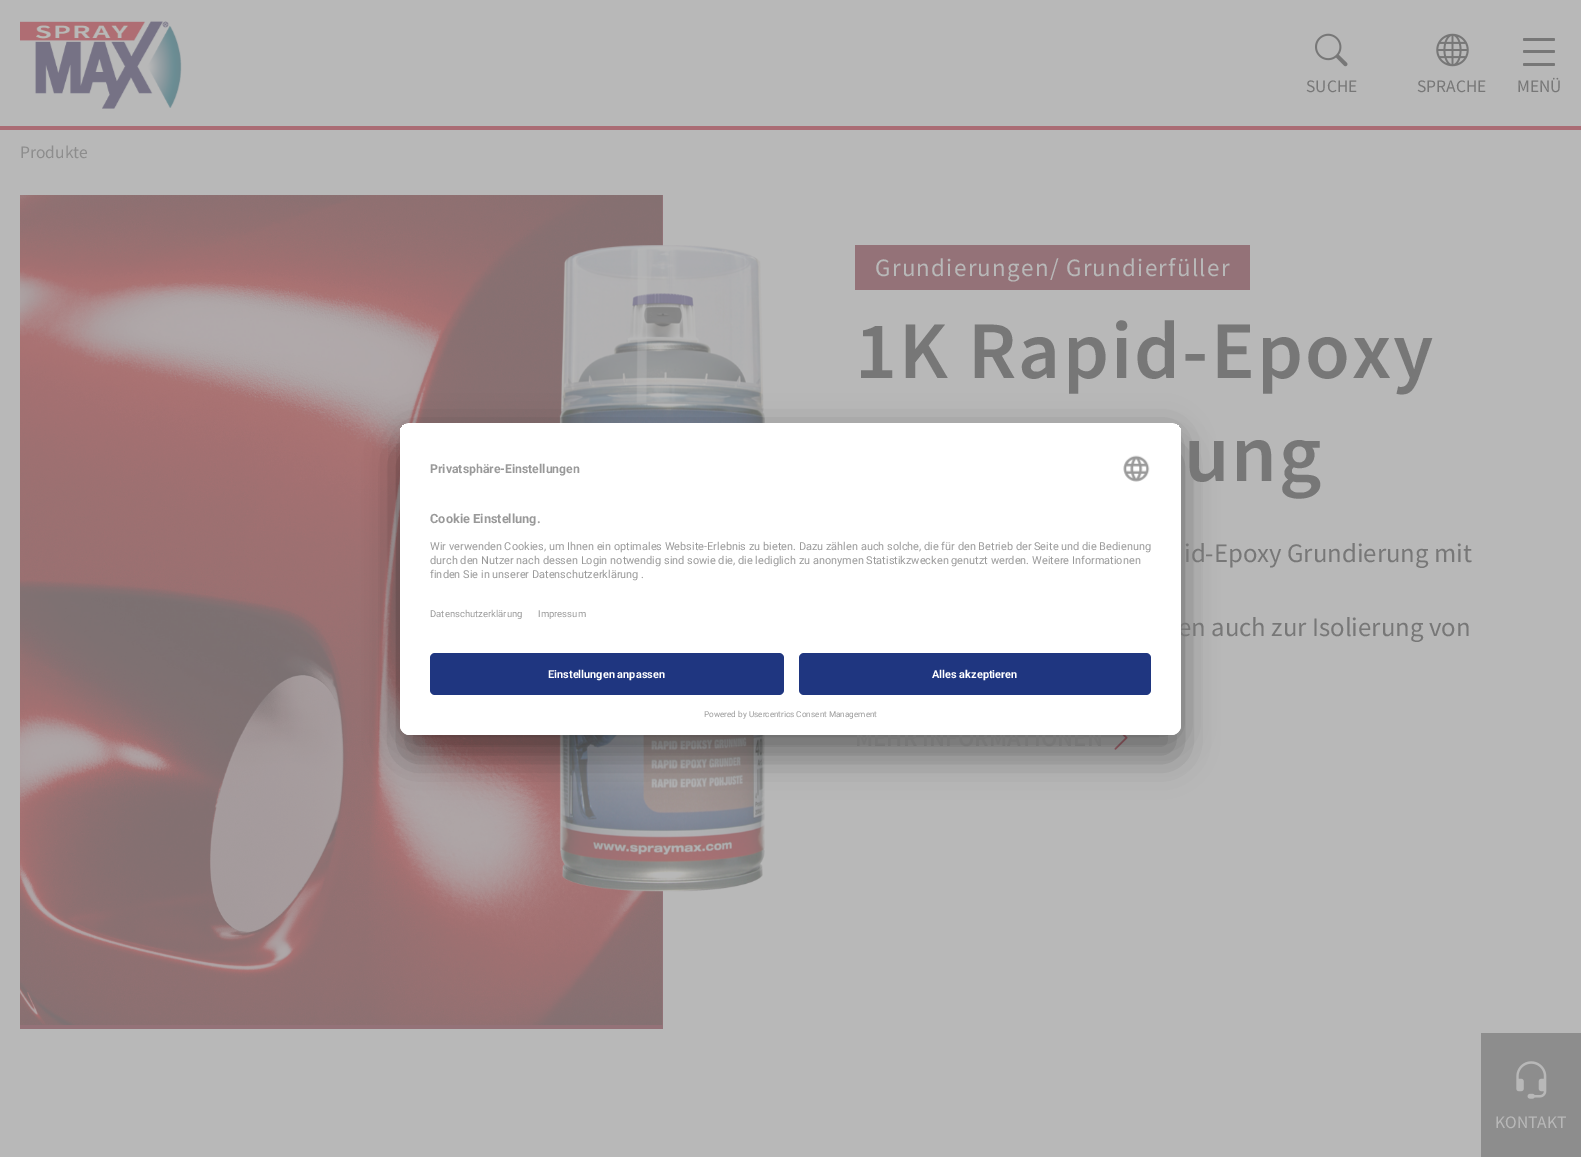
%!PS-Adobe-3.0
%%BoundingBox: 0 0 1581 1157
%%LanguageLevel: 3
%%Pages: 1
%%EndComments
%%BeginProlog
/m { moveto } bind def
/l { lineto } bind def
/c { curveto } bind def
/h { closepath } bind def
/f { fill } bind def
/q { gsave } bind def
/Q { grestore } bind def
/fn { [ exch dup neg 0 0 3 -1 roll 0 0 ] selectfont } def
/tx { moveto show } def
/bx { rectfill } def
/al { dup .setfillconstantalpha .setstrokeconstantalpha } def
/rr { 5 dict begin { /r /h /w /y /x } { exch def } forall
  x r add y moveto x w add y 2 copy h add r arct x w add y h add x 1 index r arct
  x y h add x y r arct x y 2 copy exch w add exch r arct closepath end } def
/sh { 12 dict begin { /a /b /q /h /w /y /x } { exch def } forall gsave /was 0 def
  9 -2 -9 { dup b mul 4 div /e exch def 1 sub .425 mul 2.718 exch exp 1 add a .99 .min exch div /now exch def
    1 1 now sub 1 was sub div sub al /was now def
    w h .min e 2 mul add 0 gt { x e sub y e sub w e 2 mul add h e 2 mul add
      q e add b .6 mul add w h .min 2 div e add .min 0 .max rr fill } if } for grestore end } def
/im { 5 dict begin { /h /w /y /x /name } { exch def } forall
  gsave x y translate w h scale
  w h 8 [w 0 0 h 0 0] name (r) file false 3 colorimage grestore end } def
%%EndProlog
%%BeginSetup
<< /PageSize [1581 1157] /PageUsesTransparency true >> setpagedevice
%%EndSetup
%%Page: 1 1
0 .pushpdf14devicefilter
0 1157 translate 1 -1 scale
4 setmiterlimit
0.722 setgray
0 0 1581 1157 bx
/SourceSansPro-Regular 17.5 fn
0.553 setgray
(Produkte) 20 158 tx
(image0.raw) 20 21 162 88 im
(image1.raw) 1315 33 33 34 im
0.467 setgray
(SUCHE) 1306 92 tx
(image2.raw) 1436 33 33 34 im
(SPRACHE) 1417 92 tx
1523 38 32 3 1.5 rr f
1523 50 32 3 1.5 rr f
1523 63 32 3 1.5 rr f
(MENÜ) 1517 92 tx
0.667 0.424 0.455 setrgbcolor
0 126 1581 4 bx
0.553 setgray
1481 1033 100 124 bx
(image3.raw) 1516 1061 31 38 im
0.722 setgray
(KONTAKT) 1495 1128 tx
0.58 0.447 0.471 setrgbcolor
20 195 643 834 bx
(image6.raw) 20 195 643 830 im
(image5.raw) 559 245 206 647 im
(image7.raw) 1114 735 14 15 im
0 setgray
400 448 781 312 10 17.5 0.3 sh
400 429 781 312 10 16 0.22 sh
/SourceSansPro-Regular 26.75 fn
0.467 setgray
(en auch zur Isolierung von) 1178 636 tx
/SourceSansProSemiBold-SemiBold 24.5 fn
(MEHR INFORMATIONEN) 855 746 tx
1 setgray
400 423 781 312 10 rr f
q
400 423 781 312 10 rr clip newpath
410 423 m 1171 423 l 1176.5 423 1181 427.5 1181 433 c 1181 643 l 400 643 l 400 433 l 400 427.5 404.5 423 410 423 c h clip newpath
400 424 781 219 bx
Q
/Roboto-Bold 12.25 fn
0.6 setgray
(Privatsphäre-Einstellungen) 430 473 tx
(image4.raw) 1123 455 27 27 im
/Roboto-Bold 12.75 fn
(Cookie Einstellung.) 430 523 tx
/Roboto-Regular 10.95 fn
(Wir verwenden Cookies, um Ihnen ein optimales Website-Erlebnis zu bieten. Dazu zählen auch solche, die für den Betrieb der Seite und die Bedienung) 430 550 tx
(durch den Nutzer nach dessen Login notwendig sind sowie die, die lediglich zu anonymen Statistikzwecken genutzt werden. Weitere Informationen) 430 564 tx
(finden Sie in unserer Datenschutzerklärung .) 430 578 tx
/Roboto-Regular 9.5 fn
(Datenschutzerklärung) 430 617 tx
(Impressum) 538 617 tx
1 setgray
400 643 m 1181 643 l 1181 725 l 1181 730.5 1176.5 735 1171 735 c 410 735 l 404.5 735 400 730.5 400 725 c h f
0.122 0.212 0.502 setrgbcolor
430 653 354 42 5 rr f
/Roboto-Bold 10.95 fn
1 setgray
(Einstellungen anpassen) 548 678 tx
0.122 0.212 0.502 setrgbcolor
799 653 352 42 5 rr f
1 setgray
(Alles akzeptieren) 932 678 tx
/Roboto-Regular 8.2 fn
0.6 setgray
(Powered by Usercentrics Consent Management) 704 717 tx
0.58 0.447 0.471 setrgbcolor
855 245 395 45 bx
/SourceSansPro-Regular 25 fn
0.722 setgray
875 276 m 1.25 0 (Grundierungen/ Grundierfüller) ashow
/SourceSansProSemiBold-SemiBold 81.75 fn
0.467 setgray
855 378 m 2 0 (1K Rapid-Epoxy) ashow
1184 481 m 2 0 (ung) ashow
/SourceSansPro-Regular 26.75 fn
(id-Epoxy Grundierung mit) 1184 562 tx
.poppdf14devicefilter showpage
%%EOF
